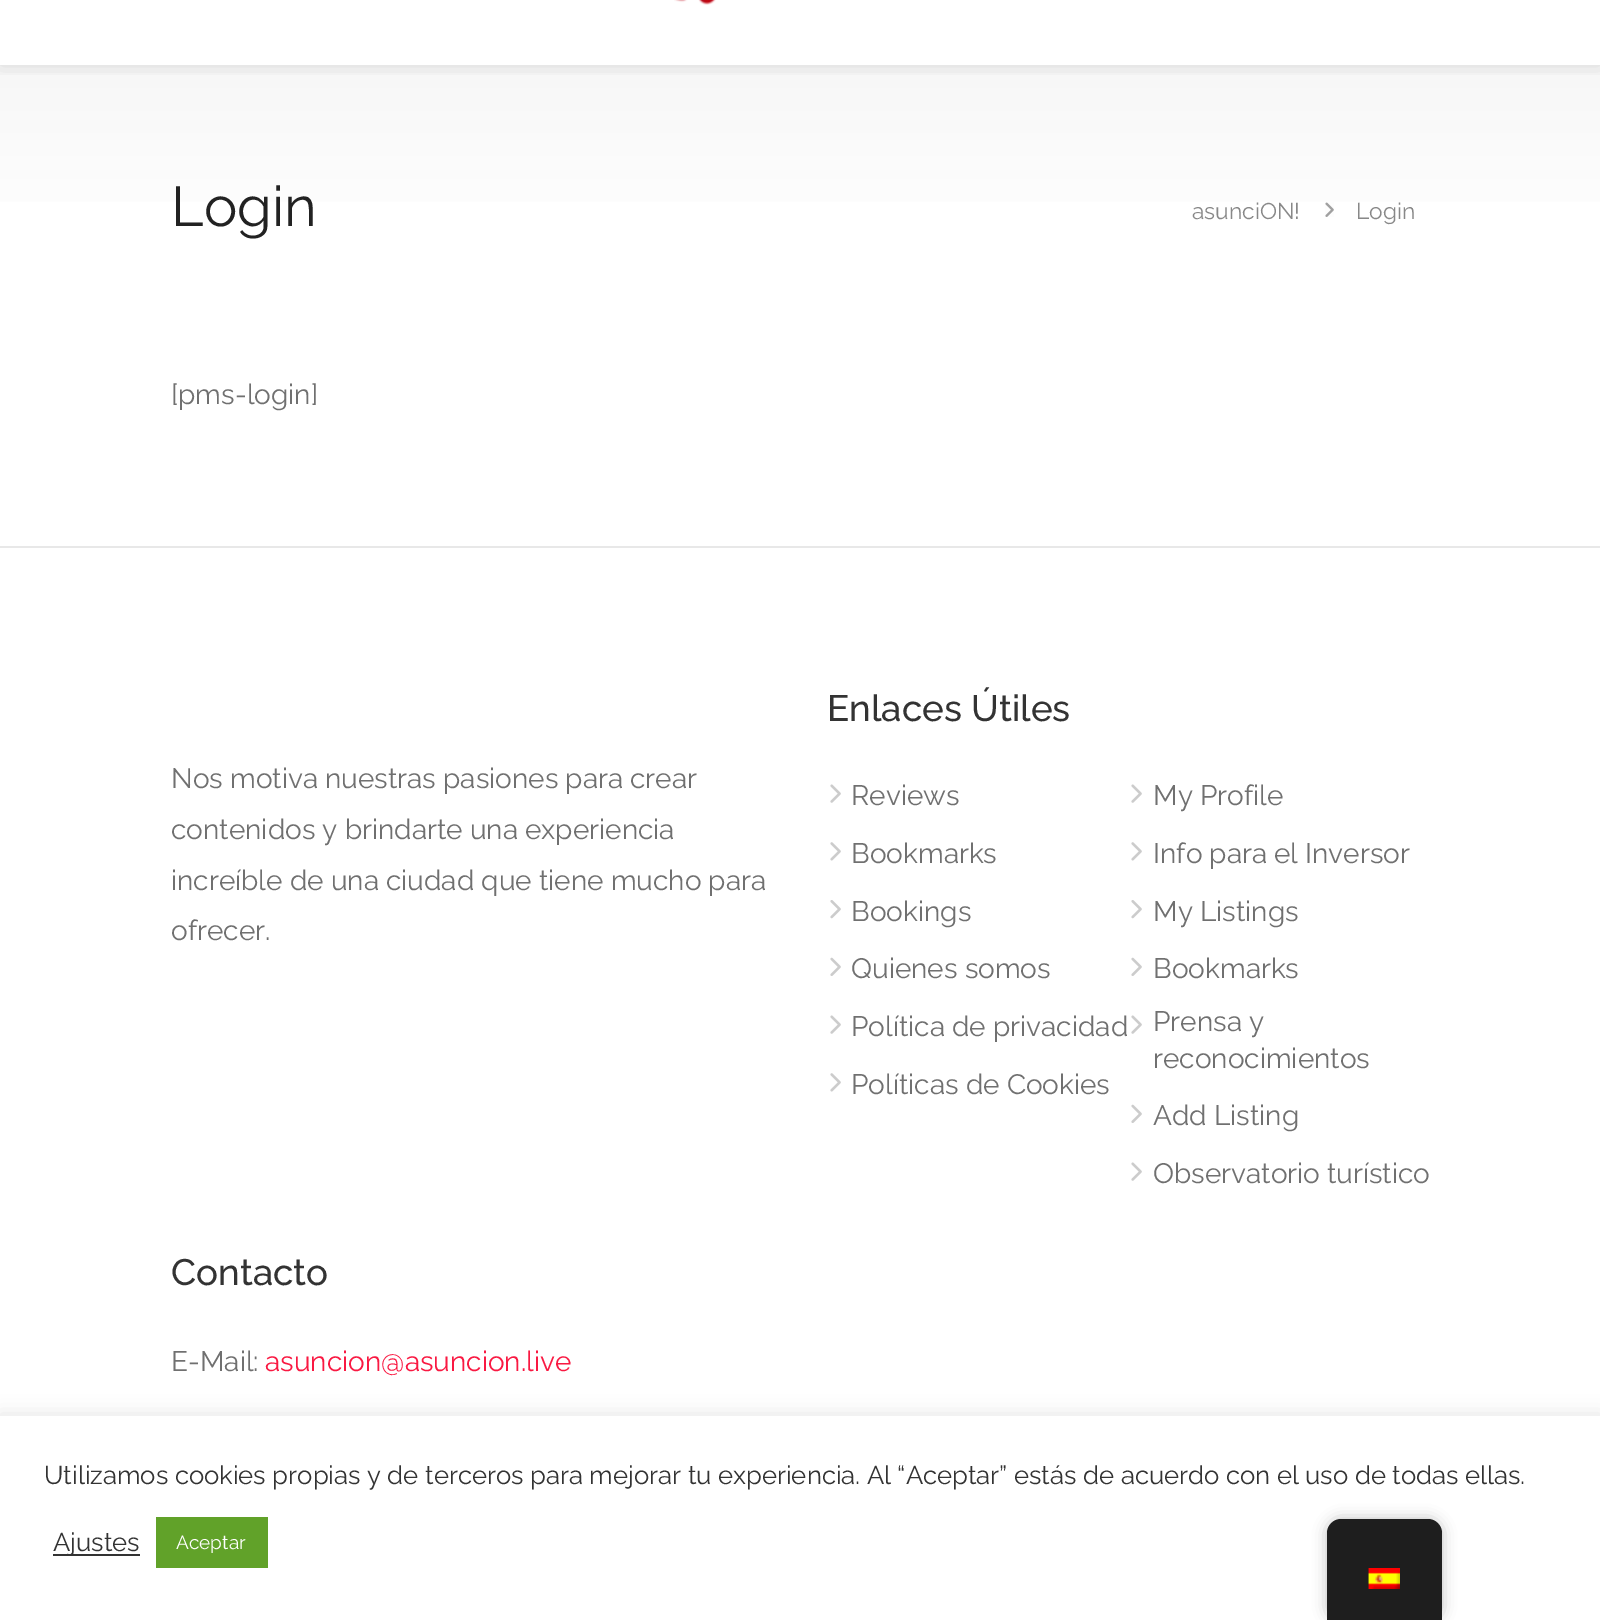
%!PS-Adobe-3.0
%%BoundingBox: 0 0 1600 1620
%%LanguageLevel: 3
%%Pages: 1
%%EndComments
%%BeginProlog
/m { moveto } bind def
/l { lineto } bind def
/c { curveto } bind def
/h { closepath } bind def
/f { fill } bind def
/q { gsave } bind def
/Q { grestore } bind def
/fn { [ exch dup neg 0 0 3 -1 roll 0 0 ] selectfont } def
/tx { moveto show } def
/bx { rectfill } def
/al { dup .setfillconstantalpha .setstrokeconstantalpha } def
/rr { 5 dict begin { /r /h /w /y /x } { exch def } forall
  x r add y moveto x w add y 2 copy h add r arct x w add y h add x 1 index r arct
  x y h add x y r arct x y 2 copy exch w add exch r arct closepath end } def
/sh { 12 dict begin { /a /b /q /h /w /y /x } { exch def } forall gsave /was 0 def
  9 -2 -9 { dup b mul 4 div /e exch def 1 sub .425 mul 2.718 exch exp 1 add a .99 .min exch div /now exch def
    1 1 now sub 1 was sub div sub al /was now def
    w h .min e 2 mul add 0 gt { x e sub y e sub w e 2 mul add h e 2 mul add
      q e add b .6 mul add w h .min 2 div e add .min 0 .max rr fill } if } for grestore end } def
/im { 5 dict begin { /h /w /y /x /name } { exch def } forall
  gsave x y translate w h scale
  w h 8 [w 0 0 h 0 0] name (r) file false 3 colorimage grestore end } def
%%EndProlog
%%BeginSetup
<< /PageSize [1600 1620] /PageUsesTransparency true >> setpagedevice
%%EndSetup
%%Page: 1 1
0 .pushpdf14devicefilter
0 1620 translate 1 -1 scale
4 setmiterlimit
1 setgray
0 0 1600 1620 bx
q 0 65 m 1600 65 l 1600 202 l 0 202 l h clip newpath
<< /ShadingType 2 /ColorSpace /DeviceRGB /Coords [801 65 801 264] /Extend [true true] /Function << /FunctionType 2 /Domain [0 1] /C0 [0.969 0.969 0.969] /C1 [1 1 1] /N 1 >> >> shfill Q
q
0 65 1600 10 rectclip
0 setgray
0 -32 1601 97 0 10.5 0.12 sh
Q
(image0.raw) 674 0 42 5 im
/Raleway-Thin 56 fn
0.133 setgray
(Login) 171 226 tx
/Raleway-Thin 22.75 fn
0.533 setgray
(asunciON!) 1192 219 tx
(image1.raw) 1325 202 9 15 im
(Login) 1356 219 tx
/Raleway-Thin 28 fn
0.439 setgray
([pms-login]) 171 404 tx
0.91 setgray
0 546 1600 2 bx
0.439 setgray
(Nos motiva nuestras pasiones para crear) 171 788 tx
(contenidos y brindarte una experiencia) 171 839 tx
(increíble de una ciudad que tiene mucho para) 171 890 tx
(ofrecer.) 171 940 tx
/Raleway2-Thin 36.75 fn
0.2 setgray
(Enlaces Útiles) 827 721 tx
(image2.raw) 830 784 11 19 im
/Raleway-Thin 28 fn
0.439 setgray
(Reviews) 851 805 tx
(image3.raw) 830 842 11 19 im
(Bookmarks) 851 863 tx
(image4.raw) 830 900 11 19 im
(Bookings) 851 921 tx
(image5.raw) 830 957 11 19 im
(Quienes somos) 851 978 tx
(image2.raw) 830 1015 11 19 im
(Política de privacidad) 851 1036 tx
(image3.raw) 830 1073 11 19 im
(Políticas de Cookies) 851 1094 tx
(image2.raw) 1131 784 11 19 im
(My Profile) 1153 805 tx
(image3.raw) 1131 842 11 19 im
(Info para el Inversor) 1153 863 tx
(image4.raw) 1131 900 11 19 im
(My Listings) 1153 921 tx
(image5.raw) 1131 957 11 19 im
(Bookmarks) 1153 978 tx
(image2.raw) 1131 1015 11 19 im
(Prensa y) 1153 1031 tx
(reconocimientos) 1153 1068 tx
(image5.raw) 1131 1104 11 19 im
(Add Listing) 1153 1125 tx
(image2.raw) 1131 1162 11 19 im
(Observatorio turístico) 1153 1183 tx
/Raleway2-Thin 36.75 fn
0.2 setgray
(Contacto) 171 1285 tx
/Raleway-Thin 28 fn
0.439 setgray
(E-Mail:) 171 1371 tx
0.976 0.098 0.259 setrgbcolor
(asuncion@asuncion.live) 265 1371 tx
0.675 0.671 0.671 setrgbcolor
0 1414 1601 205 0 9 0.3 sh
1 setgray
0 1416 1600 204 bx
/Raleway-Thin 25.67 fn
0.2 setgray
(Utilizamos cookies propias y de terceros para mejorar tu experiencia. Al “Aceptar” estás de acuerdo con el uso de todas ellas.) 44 1484 tx
53 1554 87 2 bx
(Ajustes) 53 1551 tx
0.38 0.635 0.161 setrgbcolor
156 1517 112 51 bx
/Raleway-Thin 19 fn
1 setgray
(Aceptar) 176 1549 tx
0 setgray
1327 1519 115 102 14 7 0.25 sh
0.118 setgray
1341 1519 m 1428 1519 l 1435.5 1519 1442 1525.5 1442 1533 c 1442 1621 l 1327 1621 l 1327 1533 l 1327 1525.5 1333.5 1519 1341 1519 c h f
(image6.raw) 1368 1568 32 21 im
.poppdf14devicefilter showpage
%%EOF
